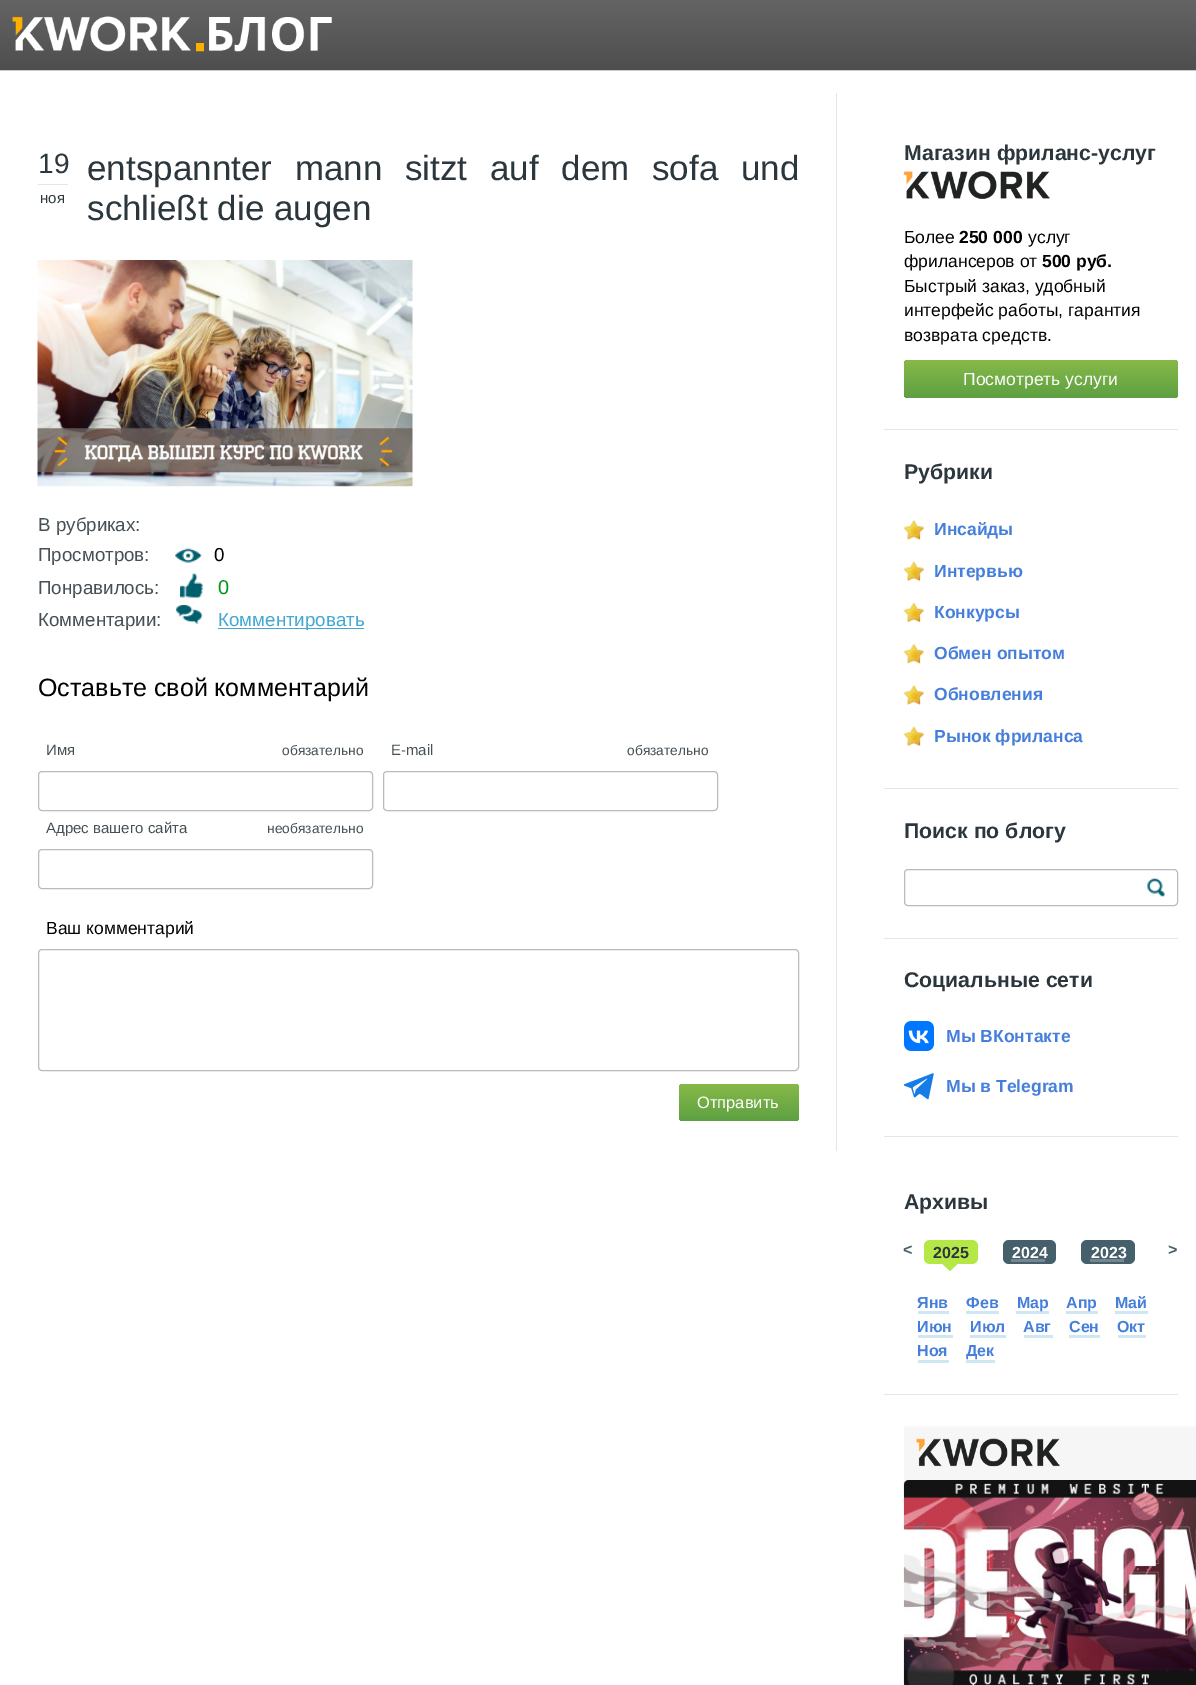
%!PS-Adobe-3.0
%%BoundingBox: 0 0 1196 1685
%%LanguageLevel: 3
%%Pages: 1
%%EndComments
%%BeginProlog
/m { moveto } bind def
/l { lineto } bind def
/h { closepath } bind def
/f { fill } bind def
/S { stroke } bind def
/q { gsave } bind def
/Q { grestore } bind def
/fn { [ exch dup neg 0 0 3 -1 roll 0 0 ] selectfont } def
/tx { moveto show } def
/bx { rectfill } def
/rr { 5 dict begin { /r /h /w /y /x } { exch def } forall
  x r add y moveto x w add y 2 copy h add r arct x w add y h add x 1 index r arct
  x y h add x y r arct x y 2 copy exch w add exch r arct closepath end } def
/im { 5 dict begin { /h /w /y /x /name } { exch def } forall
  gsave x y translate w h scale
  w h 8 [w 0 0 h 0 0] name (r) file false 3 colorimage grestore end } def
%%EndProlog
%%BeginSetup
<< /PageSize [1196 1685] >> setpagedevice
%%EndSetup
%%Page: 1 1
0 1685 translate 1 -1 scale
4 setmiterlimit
1 setgray
0 0 1196 1685 bx
0.8 setgray
0 70 1196 1 bx
q 0 0 m 1196 0 l 1196 70 l 0 70 l h clip newpath
<< /ShadingType 2 /ColorSpace /DeviceRGB /Coords [613 0 613 70] /Extend [true true] /Function << /FunctionType 2 /Domain [0 1] /C0 [0.392 0.392 0.392] /C1 [0.306 0.306 0.306] /N 1 >> >> shfill Q
(image0.raw) 12 16 320 36 im
0.898 setgray
836 93 1 1058 bx
38 184 30 1 bx
/LiberationSans-Regular 28 fn
0.173 0.216 0.239 setrgbcolor
(19) 38 173 tx
/LiberationSans-Regular 15 fn
(ноя) 40 203 tx
/LiberationSans-Regular 35 fn
87 180 m 13 0 32 (entspannter mann sitzt auf dem sofa und) widthshow
(schließt die augen) 87 220 tx
(image1.raw) 37 260 376 227 im
/LiberationSans-Regular 18.75 fn
0.275 0.314 0.333 setrgbcolor
(В рубриках:) 38 531 tx
(Просмотров:) 38 561 tx
(image2.raw) 175 548 27 15 im
0 setgray
(0) 214 561 tx
0.275 0.314 0.333 setrgbcolor
(Понравилось:) 38 594 tx
(image3.raw) 180 573 23 25 im
/LiberationSans-Regular 20 fn
0.012 0.596 0.082 setrgbcolor
(0) 218 594 tx
/LiberationSans-Regular 18.75 fn
0.275 0.314 0.333 setrgbcolor
(Комментарии:) 38 626 tx
(image4.raw) 176 605 27 19 im
0.263 0.663 0.827 setrgbcolor
218 628 146 1 bx
(Комментировать) 218 626 tx
/LiberationSans-Regular 25 fn
0 setgray
(Оставьте свой комментарий) 38 696 tx
/LiberationSans-Regular 15 fn
0.275 0.314 0.333 setrgbcolor
(Имя) 46 755 tx
/LiberationSans-Regular 13.75 fn
(обязательно) 282 755 tx
0.733 setgray
38.5 771.5 334 39 3.5 rr S
/LiberationSans-Regular 15 fn
0.275 0.314 0.333 setrgbcolor
(E-mail) 391 755 tx
/LiberationSans-Regular 13.75 fn
(обязательно) 627 755 tx
0.733 setgray
383.5 771.5 334 39 3.5 rr S
/LiberationSans-Regular 15 fn
0.275 0.314 0.333 setrgbcolor
(Адрес вашего сайта) 46 833 tx
/LiberationSans-Regular 13.75 fn
(необязательно) 267 833 tx
0.733 setgray
38.5 849.5 334 39 3.5 rr S
/LiberationSans-Regular 17.5 fn
0 setgray
(Ваш комментарий) 46 934 tx
0.733 setgray
38.5 949.5 760 121 3.5 rr S
q 679 1084 120 37 4 rr clip newpath
<< /ShadingType 2 /ColorSpace /DeviceRGB /Coords [739 1084 739 1121] /Extend [true true] /Function << /FunctionType 2 /Domain [0 1] /C0 [0.529 0.725 0.282] /C1 [0.365 0.627 0.259] /N 1 >> >> shfill Q
/LiberationSans-Regular 16.5 fn
1 setgray
(Отправить) 697 1108 tx
0.898 setgray
884 429 294 1 bx
/LiberationSans-Bold 21.25 fn
0.173 0.216 0.239 setrgbcolor
(Магазин фриланс-услуг) 904 160 tx
(image5.raw) 903 171 147 28 im
/LiberationSans-Regular 17.5 fn
0 setgray
(Более) 904 243 tx
/LiberationSans-Bold 17.5 fn
(250 000) 959 243 tx
/LiberationSans-Regular 17.5 fn
(услуг) 1028 243 tx
(фрилансеров от) 904 267 tx
/LiberationSans-Bold 17.5 fn
(500 руб.) 1042 267 tx
/LiberationSans-Regular 17.5 fn
(Быстрый заказ, удобный) 904 292 tx
(интерфейс работы, гарантия) 904 316 tx
(возврата средств.) 904 341 tx
q 904 360 274 38 4 rr clip newpath
<< /ShadingType 2 /ColorSpace /DeviceRGB /Coords [1041 360 1041 398] /Extend [true true] /Function << /FunctionType 2 /Domain [0 1] /C0 [0.529 0.725 0.282] /C1 [0.365 0.627 0.259] /N 1 >> >> shfill Q
1 setgray
(Посмотреть услуги) 963 385 tx
0.898 setgray
884 788 294 1 bx
/LiberationSans-Bold 21.25 fn
0.173 0.216 0.239 setrgbcolor
(Рубрики) 904 479 tx
(image6.raw) 903 520 21 20 im
/LiberationSans-Bold 17.5 fn
0.271 0.494 0.859 setrgbcolor
(Инсайды) 934 535 tx
(image7.raw) 903 561 21 21 im
(Интервью) 934 577 tx
(image8.raw) 903 602 21 21 im
(Конкурсы) 934 618 tx
(image9.raw) 903 643 21 21 im
(Обмен опытом) 934 659 tx
(image6.raw) 903 685 21 20 im
(Обновления) 934 700 tx
(image7.raw) 903 726 21 21 im
(Рынок фриланса) 934 742 tx
0.898 setgray
884 938 294 1 bx
/LiberationSans-Bold 21.25 fn
0.173 0.216 0.239 setrgbcolor
(Поиск по блогу) 904 838 tx
0.733 setgray
904.5 869.5 273 36 3.5 rr S
(image10.raw) 1147 878 18 19 im
0.898 setgray
884 1136 294 1 bx
0.173 0.216 0.239 setrgbcolor
(Социальные сети) 904 987 tx
(image11.raw) 904 1021 30 30 im
/LiberationSans-Bold 17.5 fn
0.271 0.494 0.859 setrgbcolor
(Мы ВКонтакте) 946 1042 tx
(image12.raw) 904 1073 30 27 im
(Мы в Telegram) 946 1092 tx
0.898 setgray
884 1394 294 1 bx
/LiberationSans-Bold 21.25 fn
0.173 0.216 0.239 setrgbcolor
(Архивы) 904 1209 tx
/LiberationSans-Bold 16 fn
0.271 0.373 0.42 setrgbcolor
(<) 903 1255 tx
(>) 1168 1255 tx
0.71 0.91 0.278 setrgbcolor
924 1240 54 24 6 rr f
0.173 0.216 0.239 setrgbcolor
(2025) 933 1258 tx
0.71 0.91 0.278 setrgbcolor
942.5 1264 m 957.5 1264 l 950 1271 l h f
0.271 0.373 0.42 setrgbcolor
1003 1240 53 24 6 rr f
1 setgray
(2024) 1012 1258 tx
0.455 0.529 0.565 setrgbcolor
1011 1259 34 3 bx
0.271 0.373 0.42 setrgbcolor
1081 1240 54 24 6 rr f
1 setgray
(2023) 1091 1258 tx
0.455 0.529 0.565 setrgbcolor
1090 1259 34 3 bx
0.271 0.494 0.859 setrgbcolor
(Янв) 917 1308 tx
0.812 0.906 0.953 setrgbcolor
918 1311 31 3 bx
0.271 0.494 0.859 setrgbcolor
(Фев) 966 1308 tx
0.812 0.906 0.953 setrgbcolor
966 1311 33 3 bx
1016 1311 33 3 bx
0.271 0.494 0.859 setrgbcolor
(Мар) 1017 1308 tx
0.812 0.906 0.953 setrgbcolor
1066 1311 32 3 bx
0.271 0.494 0.859 setrgbcolor
(Апр) 1066 1308 tx
(Май) 1115 1308 tx
0.812 0.906 0.953 setrgbcolor
1115 1311 33 3 bx
0.271 0.494 0.859 setrgbcolor
(Июн) 917 1332 tx
0.812 0.906 0.953 setrgbcolor
918 1335 35 3 bx
0.271 0.494 0.859 setrgbcolor
(Июл) 970 1332 tx
0.812 0.906 0.953 setrgbcolor
970 1335 36 3 bx
0.271 0.494 0.859 setrgbcolor
(Авг) 1023 1332 tx
0.812 0.906 0.953 setrgbcolor
1024 1335 29 3 bx
0.271 0.494 0.859 setrgbcolor
(Сен) 1069 1332 tx
0.812 0.906 0.953 setrgbcolor
1069 1335 31 3 bx
0.271 0.494 0.859 setrgbcolor
(Окт) 1117 1332 tx
0.812 0.906 0.953 setrgbcolor
1118 1335 28 3 bx
0.271 0.494 0.859 setrgbcolor
(Ноя) 917 1356 tx
0.812 0.906 0.953 setrgbcolor
918 1360 31 3 bx
0.271 0.494 0.859 setrgbcolor
(Дек) 966 1356 tx
0.812 0.906 0.953 setrgbcolor
966 1360 29 3 bx
(image13.raw) 903 1426 293 259 im
showpage
%%EOF
